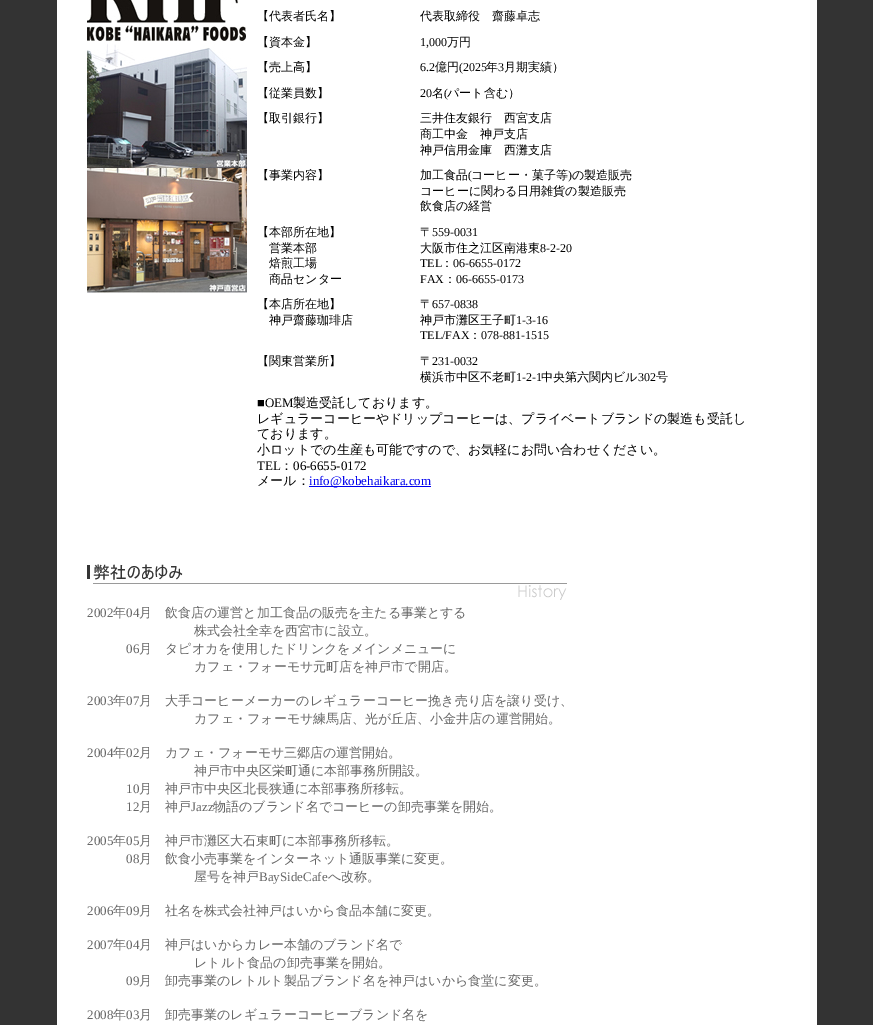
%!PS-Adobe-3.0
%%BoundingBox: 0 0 873 1025
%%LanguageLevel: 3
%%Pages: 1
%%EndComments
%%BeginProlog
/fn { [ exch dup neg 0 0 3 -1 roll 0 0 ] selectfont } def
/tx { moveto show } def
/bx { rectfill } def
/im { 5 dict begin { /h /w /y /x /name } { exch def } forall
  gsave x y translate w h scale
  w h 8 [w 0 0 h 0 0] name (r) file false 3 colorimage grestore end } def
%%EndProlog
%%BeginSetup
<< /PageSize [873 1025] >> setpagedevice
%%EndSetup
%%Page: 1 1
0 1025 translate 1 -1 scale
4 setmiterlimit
0.2 setgray
0 0 873 1025 bx
1 setgray
57 0 760 1025 bx
(image0.raw) 87 0 160 293 im
/WenQuanYiZenHei-Medium 12 fn
0 setgray
(【代表者氏名】) 257 20 tx
(代表取締役　齋藤卓志) 420 20 tx
(【資本金】) 257 46 tx
/LiberationSerif-Regular 12 fn
(1,000) 420 46 tx
/WenQuanYiZenHei-Medium 12 fn
(万円) 447 46 tx
(【売上高】) 257 71 tx
/LiberationSerif-Regular 12 fn
(6.2) 420 71 tx
/WenQuanYiZenHei-Medium 12 fn
(億円) 435 71 tx
/LiberationSerif-Regular 12 fn
(\(2025) 459 71 tx
/WenQuanYiZenHei-Medium 12 fn
(年) 486 71 tx
/LiberationSerif-Regular 12 fn
(3) 498 71 tx
/WenQuanYiZenHei-Medium 12 fn
(月期実績）) 504 71 tx
(【従業員数】) 257 97 tx
/LiberationSerif-Regular 12 fn
(20) 420 97 tx
/WenQuanYiZenHei-Medium 12 fn
(名) 432 97 tx
/LiberationSerif-Regular 12 fn
(\() 444 97 tx
/WenQuanYiZenHei-Medium 12 fn
(パート含む）) 447 97 tx
(【取引銀行】) 257 122 tx
(三井住友銀行　西宮支店) 420 122 tx
(商工中金　神戸支店) 420 138 tx
(神戸信用金庫　西灘支店) 420 154 tx
(【事業内容】) 257 179 tx
(加工食品) 420 179 tx
/LiberationSerif-Regular 12 fn
(\() 468 179 tx
/WenQuanYiZenHei-Medium 12 fn
(コーヒー・菓子等) 471 179 tx
/LiberationSerif-Regular 12 fn
(\)) 568 179 tx
/WenQuanYiZenHei-Medium 12 fn
(の製造販売) 572 179 tx
(コーヒーに関わる日用雑貨の製造販売) 420 195 tx
(飲食店の経営) 420 210 tx
(【本部所在地】) 257 236 tx
(営業本部) 269 252 tx
(焙煎工場) 269 267 tx
(商品センター) 269 283 tx
(〒) 420 236 tx
/LiberationSerif-Regular 12 fn
(559-0031) 432 236 tx
/WenQuanYiZenHei-Medium 12 fn
(大阪市住之江区南港東) 420 252 tx
/LiberationSerif-Regular 12 fn
(8-2-20) 540 252 tx
(TEL) 420 267 tx
/WenQuanYiZenHei-Medium 12 fn
(：) 441 267 tx
/LiberationSerif-Regular 12 fn
(06-6655-0172) 453 267 tx
(FAX) 420 283 tx
/WenQuanYiZenHei-Medium 12 fn
(：) 444 283 tx
/LiberationSerif-Regular 12 fn
(06-6655-0173) 456 283 tx
/WenQuanYiZenHei-Medium 12 fn
(【本店所在地】) 257 308 tx
(神戸齋藤珈琲店) 269 324 tx
(〒) 420 308 tx
/LiberationSerif-Regular 12 fn
(657-0838) 432 308 tx
/WenQuanYiZenHei-Medium 12 fn
(神戸市灘区王子町) 420 324 tx
/LiberationSerif-Regular 12 fn
(1-3-16) 516 324 tx
(TEL/FAX) 420 339 tx
/WenQuanYiZenHei-Medium 12 fn
(：) 469 339 tx
/LiberationSerif-Regular 12 fn
(078-881-1515) 481 339 tx
/WenQuanYiZenHei-Medium 12 fn
(【関東営業所】) 257 365 tx
(〒) 420 365 tx
/LiberationSerif-Regular 12 fn
(231-0032) 432 365 tx
/WenQuanYiZenHei-Medium 12 fn
(横浜市中区不老町) 420 381 tx
/LiberationSerif-Regular 12 fn
(1-2-1) 516 381 tx
/WenQuanYiZenHei-Medium 12 fn
(中央第六関内ビル) 541 381 tx
/LiberationSerif-Regular 12 fn
(302) 638 381 tx
/WenQuanYiZenHei-Medium 12 fn
(号) 656 381 tx
/LiberationSerif-Regular 13 fn
(■OEM) 257 407 tx
/WenQuanYiZenHei-Medium 13 fn
(製造受託しております。) 293 407 tx
(レギュラーコーヒーやドリップコーヒーは、プライベートブランドの製造も受託し) 257 423 tx
(ております。) 257 438 tx
(小ロットでの生産も可能ですので、お気軽にお問い合わせください。) 257 454 tx
/LiberationSerif-Regular 13 fn
(TEL) 257 470 tx
/WenQuanYiZenHei-Medium 13 fn
(：) 280 470 tx
/LiberationSerif-Regular 13 fn
(06-6655-0172) 293 470 tx
/WenQuanYiZenHei-Medium 13 fn
(メール：) 257 485 tx
0 0 0.933 setrgbcolor
309 486 122 1 bx
/LiberationSerif-Regular 13 fn
(info@kobehaikara.com) 309 485 tx
(image1.raw) 87 564 480 36 im
0.4 setgray
(2002) 87 617 tx
/WenQuanYiZenHei-Medium 13 fn
(年) 113 617 tx
/LiberationSerif-Regular 13 fn
(04) 126 617 tx
/WenQuanYiZenHei-Medium 13 fn
(月　飲食店の運営と加工食品の販売を主たる事業とする) 139 617 tx
(株式会社全幸を西宮市に設立。) 194 635 tx
/LiberationSerif-Regular 13 fn
(06) 126 653 tx
/WenQuanYiZenHei-Medium 13 fn
(月　タピオカを使用したドリンクをメインメニューに) 139 653 tx
(カフェ・フォーモサ元町店を神戸市で開店。) 194 671 tx
/LiberationSerif-Regular 13 fn
(2003) 87 705 tx
/WenQuanYiZenHei-Medium 13 fn
(年) 113 705 tx
/LiberationSerif-Regular 13 fn
(07) 126 705 tx
/WenQuanYiZenHei-Medium 13 fn
(月　大手コーヒーメーカーのレギュラーコーヒー挽き売り店を譲り受け、) 139 705 tx
(カフェ・フォーモサ練馬店、光が丘店、小金井店の運営開始。) 194 723 tx
/LiberationSerif-Regular 13 fn
(2004) 87 757 tx
/WenQuanYiZenHei-Medium 13 fn
(年) 113 757 tx
/LiberationSerif-Regular 13 fn
(02) 126 757 tx
/WenQuanYiZenHei-Medium 13 fn
(月　カフェ・フォーモサ三郷店の運営開始。) 139 757 tx
(神戸市中央区栄町通に本部事務所開設。) 194 775 tx
/LiberationSerif-Regular 13 fn
(10) 126 793 tx
/WenQuanYiZenHei-Medium 13 fn
(月　神戸市中央区北長狭通に本部事務所移転。) 139 793 tx
/LiberationSerif-Regular 13 fn
(12) 126 811 tx
/WenQuanYiZenHei-Medium 13 fn
(月　神戸) 139 811 tx
/LiberationSerif-Regular 13 fn
(Jazz) 191 811 tx
/WenQuanYiZenHei-Medium 13 fn
(物語のブランド名でコーヒーの卸売事業を開始。) 213 811 tx
/LiberationSerif-Regular 13 fn
(2005) 87 845 tx
/WenQuanYiZenHei-Medium 13 fn
(年) 113 845 tx
/LiberationSerif-Regular 13 fn
(05) 126 845 tx
/WenQuanYiZenHei-Medium 13 fn
(月　神戸市灘区大石東町に本部事務所移転。) 139 845 tx
/LiberationSerif-Regular 13 fn
(08) 126 863 tx
/WenQuanYiZenHei-Medium 13 fn
(月　飲食小売事業をインターネット通販事業に変更。) 139 863 tx
(屋号を神戸) 194 881 tx
/LiberationSerif-Regular 13 fn
(BaySideCafe) 259 881 tx
/WenQuanYiZenHei-Medium 13 fn
(へ改称。) 328 881 tx
/LiberationSerif-Regular 13 fn
(2006) 87 915 tx
/WenQuanYiZenHei-Medium 13 fn
(年) 113 915 tx
/LiberationSerif-Regular 13 fn
(09) 126 915 tx
/WenQuanYiZenHei-Medium 13 fn
(月　社名を株式会社神戸はいから食品本舗に変更。) 139 915 tx
/LiberationSerif-Regular 13 fn
(2007) 87 949 tx
/WenQuanYiZenHei-Medium 13 fn
(年) 113 949 tx
/LiberationSerif-Regular 13 fn
(04) 126 949 tx
/WenQuanYiZenHei-Medium 13 fn
(月　神戸はいからカレー本舗のブランド名で) 139 949 tx
(レトルト食品の卸売事業を開始。) 194 967 tx
/LiberationSerif-Regular 13 fn
(09) 126 985 tx
/WenQuanYiZenHei-Medium 13 fn
(月　卸売事業のレトルト製品ブランド名を神戸はいから食堂に変更。) 139 985 tx
/LiberationSerif-Regular 13 fn
(2008) 87 1019 tx
/WenQuanYiZenHei-Medium 13 fn
(年) 113 1019 tx
/LiberationSerif-Regular 13 fn
(03) 126 1019 tx
/WenQuanYiZenHei-Medium 13 fn
(月　卸売事業のレギュラーコーヒーブランド名を) 139 1019 tx
showpage
%%EOF
